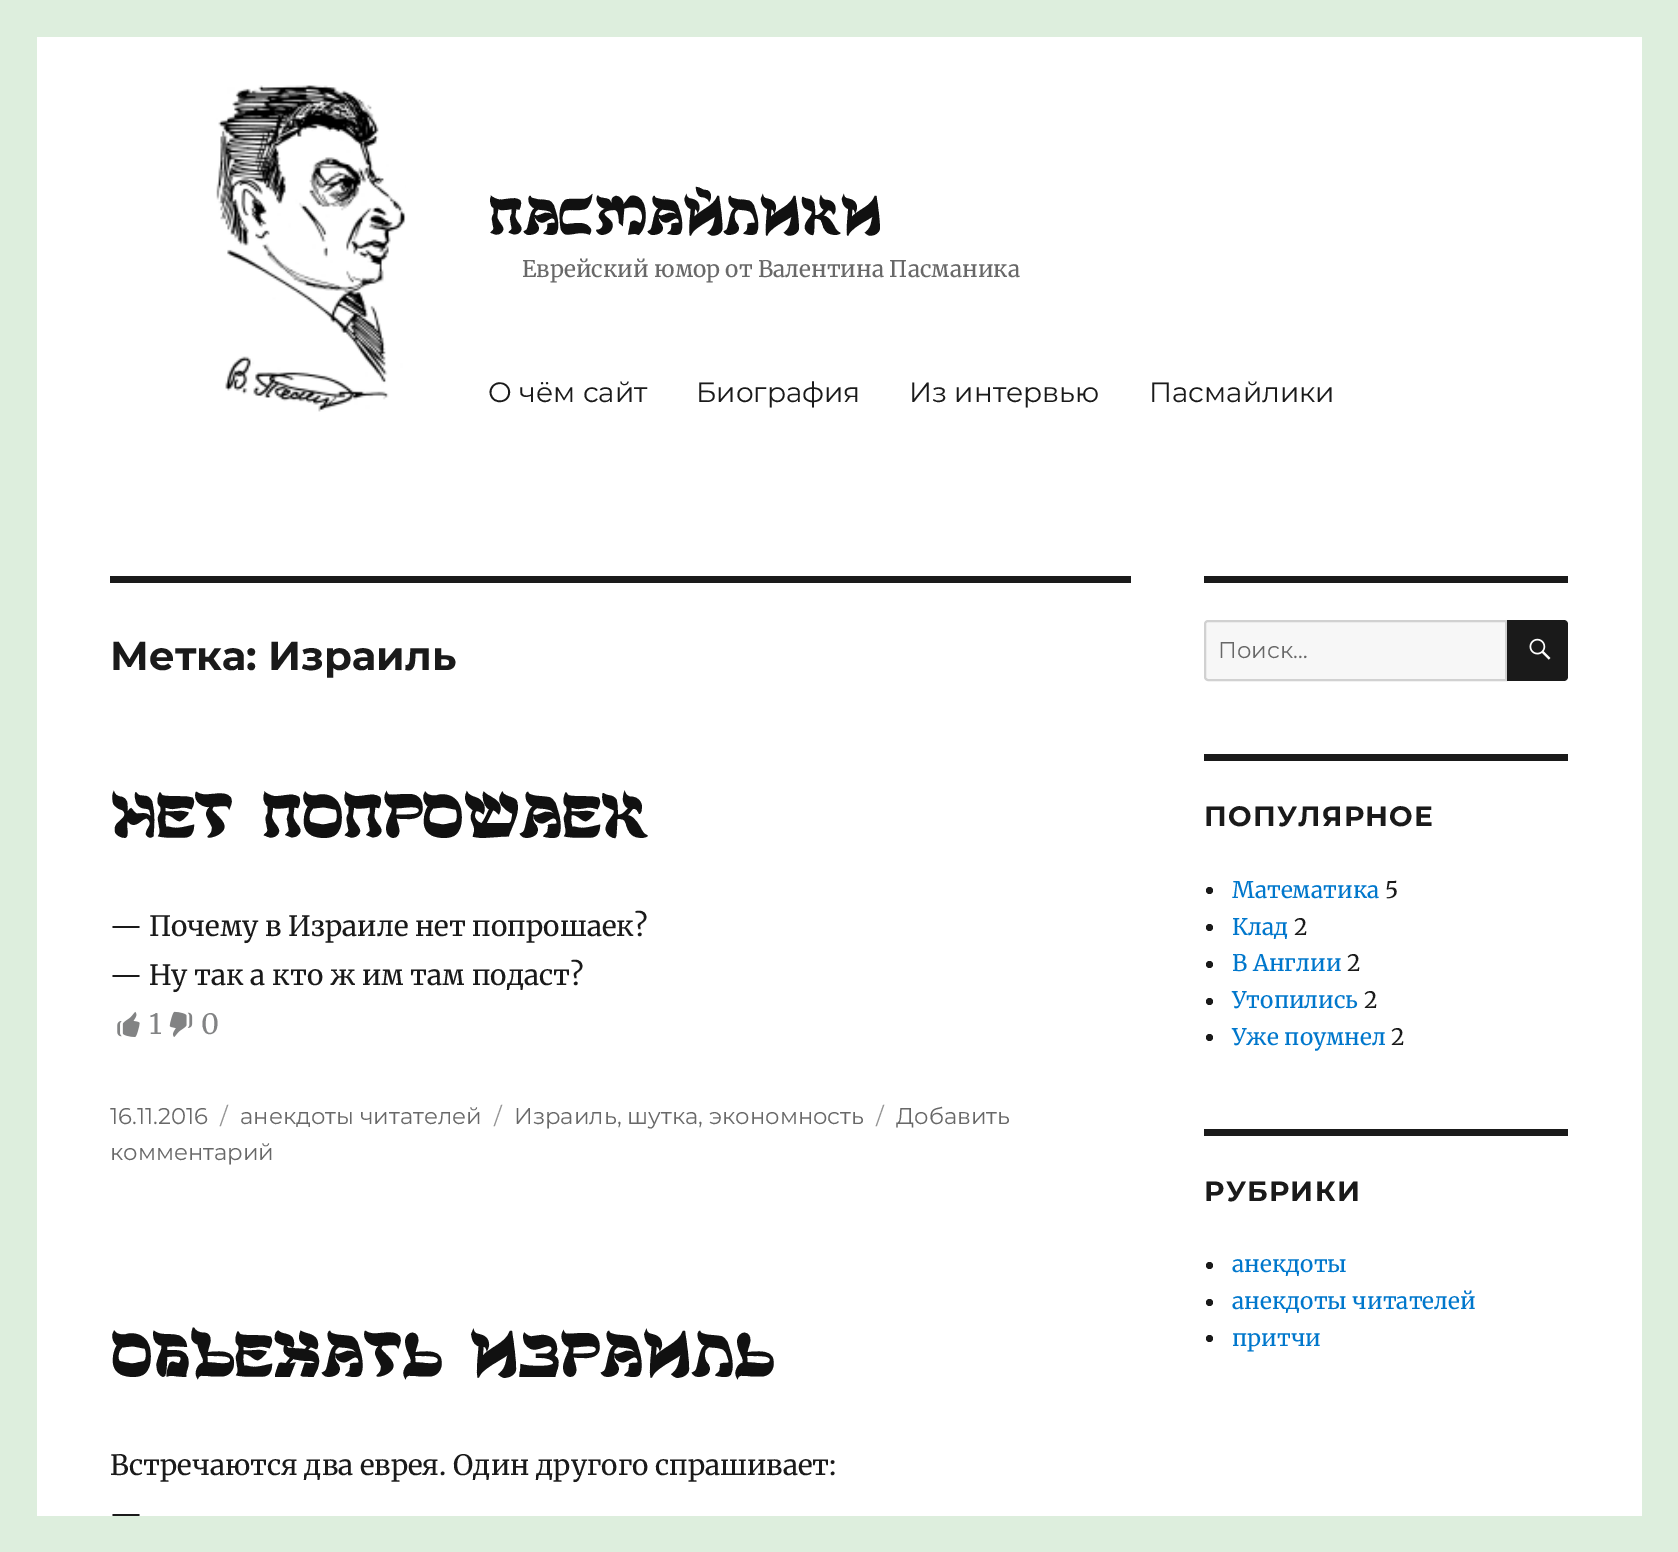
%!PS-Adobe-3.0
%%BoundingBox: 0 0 1678 1552
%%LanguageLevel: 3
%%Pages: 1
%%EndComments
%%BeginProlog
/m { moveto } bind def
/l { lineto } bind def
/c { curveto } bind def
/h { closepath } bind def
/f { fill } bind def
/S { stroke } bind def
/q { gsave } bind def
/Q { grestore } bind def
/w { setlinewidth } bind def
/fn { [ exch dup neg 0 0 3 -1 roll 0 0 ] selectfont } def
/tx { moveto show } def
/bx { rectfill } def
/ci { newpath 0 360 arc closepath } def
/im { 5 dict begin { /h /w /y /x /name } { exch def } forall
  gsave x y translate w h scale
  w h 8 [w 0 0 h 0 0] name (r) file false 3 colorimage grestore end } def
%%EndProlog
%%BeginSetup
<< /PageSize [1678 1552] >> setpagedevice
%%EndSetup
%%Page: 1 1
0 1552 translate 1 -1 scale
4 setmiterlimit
0.867 0.933 0.867 setrgbcolor
0 0 1678 1552 bx
1 setgray
37 37 1605 1479 bx
(image0.raw) 216 85 190 327 im
/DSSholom-Bold 49 fn
0.067 setgray
(Пасмайлики) 488 235 tx
/Merriweather-Regular 22.75 fn
0.408 setgray
(Еврейский юмор от Валентина Пасманика) 522 277 tx
/Montserrat-Regular 28 fn
0.102 setgray
(О чём сайт) 488 402 tx
(Биография) 696 402 tx
(Из интервью) 909 402 tx
(Пасмайлики) 1149 402 tx
110 576 1021 7 bx
/Montserrat-Bold 40.25 fn
(Метка: Израиль) 110 670 tx
/DSSholom-Bold 57.75 fn
0.067 setgray
(Нет попрошаек) 110 838 tx
/Merriweather-Regular 28 fn
0.102 setgray
(— Почему в Израиле нет попрошаек?) 110 936 tx
(— Ну так а кто ж им там подаст?) 110 985 tx
(image1.raw) 117 1011 23 26 im
0.51 0.514 0.518 setrgbcolor
(1) 149 1034 tx
(image2.raw) 169 1011 24 26 im
(0) 201 1034 tx
/Montserrat-Regular 22.75 fn
0.408 setgray
(16.11.2016) 110 1124 tx
0.584 setgray
(/) 220 1124 tx
0.408 setgray
(анекдоты читателей) 240 1124 tx
0.584 setgray
(/) 494 1124 tx
0.408 setgray
(Израиль, шутка, экономность) 514 1124 tx
0.584 setgray
(/) 876 1124 tx
0.408 setgray
(Добавить) 896 1124 tx
(комментарий) 110 1160 tx
/DSSholom-Bold 57.75 fn
0.067 setgray
(Объехать Израиль) 110 1377 tx
/Merriweather-Regular 28 fn
0.102 setgray
(Встречаются два еврея. Один другого спрашивает:) 110 1475 tx
(—) 110 1524 tx
1204 576 364 7 bx
0.969 setgray
1208 621 m 1506 621 l 1506 680 l 1208 680 l 1206.5 680 1205 678.5 1205 677 c 1205 624 l 1205 622.5 1206.5 621 1208 621 c h q f Q
0.82 setgray
2 w
S
/Montserrat-Regular 22.75 fn
0.408 setgray
(Поиск…) 1218 658 tx
0.102 setgray
1507 620 m 1564 620 l 1566 620 1568 622 1568 624 c 1568 677 l 1568 679 1566 681 1564 681 c 1507 681 l h f
(image3.raw) 1529 638 22 22 im
1204 754 364 7 bx
/Montserrat-Bold 28 fn
1204 826 m 1.25 0 (ПОПУЛЯРНОЕ) ashow
1209.5 890.5 3.5 ci f
/Merriweather-Regular 22.75 fn
0 0.467 0.8 setrgbcolor
(Математика) 1232 898 tx
0.102 setgray
(5) 1385 898 tx
1209.5 927.5 3.5 ci f
0 0.467 0.8 setrgbcolor
(Клад) 1232 935 tx
0.102 setgray
(2) 1294 935 tx
1209.5 964.5 3.5 ci f
0 0.467 0.8 setrgbcolor
(В Англии) 1232 971 tx
0.102 setgray
(2) 1347 971 tx
1209.5 1001.5 3.5 ci f
0 0.467 0.8 setrgbcolor
(Утопились) 1232 1008 tx
0.102 setgray
(2) 1364 1008 tx
1209.5 1037.5 3.5 ci f
0 0.467 0.8 setrgbcolor
(Уже поумнел) 1232 1045 tx
0.102 setgray
(2) 1391 1045 tx
1204 1129 364 7 bx
/Montserrat-Bold 28 fn
1204 1201 m 1.25 0 (РУБРИКИ) ashow
1209.5 1265.5 3.5 ci f
/Merriweather-Regular 22.75 fn
0 0.467 0.8 setrgbcolor
(анекдоты) 1232 1272 tx
0.102 setgray
1209.5 1302.5 3.5 ci f
0 0.467 0.8 setrgbcolor
(анекдоты читателей) 1232 1309 tx
0.102 setgray
1209.5 1338.5 3.5 ci f
0 0.467 0.8 setrgbcolor
(притчи) 1232 1346 tx
0.867 0.933 0.867 setrgbcolor
112 1516 27 1 bx
showpage
%%EOF
